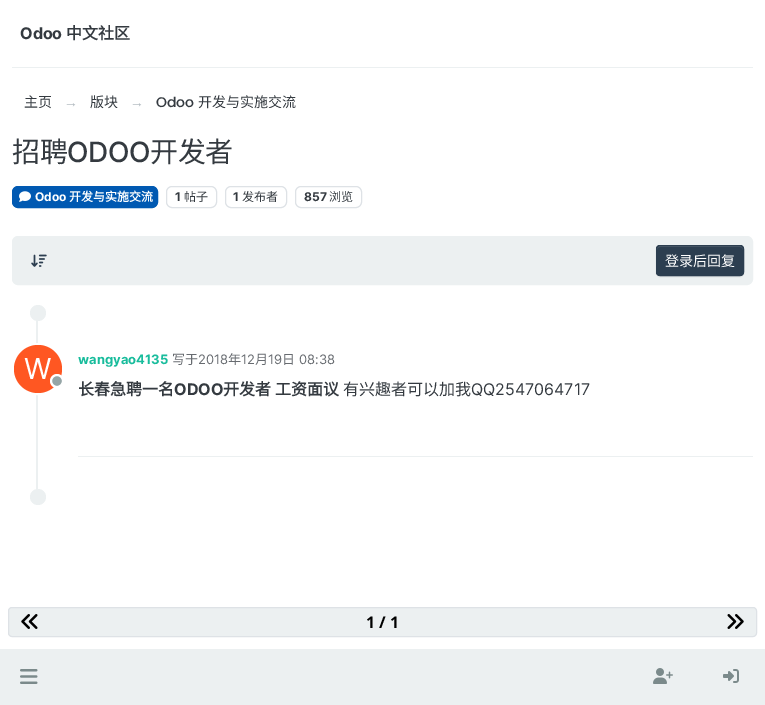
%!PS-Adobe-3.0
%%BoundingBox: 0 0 765 705
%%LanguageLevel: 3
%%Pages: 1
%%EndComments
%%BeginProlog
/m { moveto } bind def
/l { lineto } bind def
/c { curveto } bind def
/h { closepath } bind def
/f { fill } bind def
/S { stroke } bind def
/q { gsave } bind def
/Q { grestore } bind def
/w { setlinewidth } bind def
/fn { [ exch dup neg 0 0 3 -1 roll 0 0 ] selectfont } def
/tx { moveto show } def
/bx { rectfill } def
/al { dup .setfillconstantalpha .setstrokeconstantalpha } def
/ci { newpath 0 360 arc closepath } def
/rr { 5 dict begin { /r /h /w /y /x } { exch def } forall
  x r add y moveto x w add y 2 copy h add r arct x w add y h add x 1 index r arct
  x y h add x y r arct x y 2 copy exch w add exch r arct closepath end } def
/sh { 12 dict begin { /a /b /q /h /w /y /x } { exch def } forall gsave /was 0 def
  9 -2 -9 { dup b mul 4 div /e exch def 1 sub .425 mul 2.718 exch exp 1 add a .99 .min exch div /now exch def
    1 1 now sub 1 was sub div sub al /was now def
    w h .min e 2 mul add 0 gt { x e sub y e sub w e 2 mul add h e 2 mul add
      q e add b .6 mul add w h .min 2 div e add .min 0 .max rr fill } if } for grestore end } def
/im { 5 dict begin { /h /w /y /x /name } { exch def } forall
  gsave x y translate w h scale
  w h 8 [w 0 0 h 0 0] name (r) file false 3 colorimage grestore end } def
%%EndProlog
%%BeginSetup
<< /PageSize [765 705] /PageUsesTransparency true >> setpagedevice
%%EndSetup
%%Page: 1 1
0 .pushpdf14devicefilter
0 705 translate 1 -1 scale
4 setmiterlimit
1 setgray
0 0 765 705 bx
0.925 0.941 0.945 setrgbcolor
12 67 741 1 bx
/Inter-Bold 16 fn
0.204 0.227 0.251 setrgbcolor
(Odoo) 20 39 tx
/NotoSansCJKSC-Bold 16 fn
(中文社区) 66 39 tx
/NotoSansCJKSC-Regular 14 fn
(主页) 24 107 tx
/LiberationSans-Regular 14 fn
0.706 0.737 0.761 setrgbcolor
(→) 64 107 tx
/NotoSansCJKSC-Regular 14 fn
0.204 0.227 0.251 setrgbcolor
(版块) 90 107 tx
/LiberationSans-Regular 14 fn
0.706 0.737 0.761 setrgbcolor
(→) 130 107 tx
/Poppins-Medium 14 fn
0.204 0.227 0.251 setrgbcolor
(Odoo) 156 107 tx
/NotoSansCJKSC-Regular 14 fn
(开发与实施交流) 198 107 tx
/NotoSansCJKSC-Regular 28 fn
12 162 m -0.5 0 (招聘) ashow
/Inter-Medium 28 fn
67 162 m -0.5 0 (ODOO) ashow
/NotoSansCJKSC-Regular 28 fn
150 162 m -0.5 0 (开发者) ashow
0 0.349 0.698 setrgbcolor
12.5 186.5 145 21 5.5 rr q f Q
S
(image0.raw) 19 191 12 11 im
/Inter-Bold 12 fn
1 setgray
(Odoo) 35 201 tx
/NotoSansCJKSC-Bold 12 fn
(开发与实施交流) 69 201 tx
0.871 0.886 0.902 setrgbcolor
166.5 186.5 50 21 5.5 rr S
/Inter-Bold 12 fn
0.204 0.227 0.251 setrgbcolor
(1) 175 201 tx
/NotoSansCJKSC-Regular 12 fn
(帖子) 184 201 tx
0.871 0.886 0.902 setrgbcolor
225.5 186.5 61 21 5.5 rr S
/Inter-Bold 12 fn
0.204 0.227 0.251 setrgbcolor
(1) 233 201 tx
/NotoSansCJKSC-Regular 12 fn
(发布者) 242 201 tx
0.871 0.886 0.902 setrgbcolor
295.5 186.5 66 21 5.5 rr S
/Inter-Bold 12 fn
0.204 0.227 0.251 setrgbcolor
(857) 304 201 tx
/NotoSansCJKSC-Regular 12 fn
(浏览) 329 201 tx
0.925 0.941 0.945 setrgbcolor
12.5 236.5 740 48 5.5 rr q f Q
S
(image1.raw) 31 254 16 13 im
0 setgray
656 246 88 31 4 0.5 0.07 sh
0.173 0.243 0.314 setrgbcolor
656 245 88 31 4 rr f
0.298 0.357 0.416 setrgbcolor
660 247 m 740 247 l 742 247 743 248 743 250 c 743 242 730 246 727 246 c 673 246 l 670 246 657 242 657 250 c 657 248 658 247 660 247 c h f
0.173 0.243 0.314 setrgbcolor
656.5 245.5 87 30 3.5 rr S
/NotoSansCJKSC-Regular 14 fn
1 setgray
(登录后回复) 665 266 tx
0.925 0.941 0.945 setrgbcolor
36 321 2 168 bx
38 313 8 ci f
1 setgray
2 w
38 369 25 ci S
1 0.341 0.133 setrgbcolor
38 369 24 ci f
/Inter-Regular 29 fn
1 setgray
(W) 24 379 tx
0.584 0.647 0.651 setrgbcolor
57 381 6 ci q f Q
1 setgray
S
/Inter-Bold 13 fn
0.094 0.737 0.612 setrgbcolor
(wangyao4135) 78 364 tx
/NotoSansCJKSC-Regular 13 fn
0.404 0.42 0.439 setrgbcolor
(写于) 172 364 tx
/Inter-Regular 13 fn
(2018) 198 364 tx
/NotoSansCJKSC-Regular 13 fn
(年) 228 364 tx
/Inter-Regular 13 fn
(12) 241 364 tx
/NotoSansCJKSC-Regular 13 fn
(月) 255 364 tx
/Inter-Regular 13 fn
(19) 268 364 tx
/NotoSansCJKSC-Regular 13 fn
(日) 282 364 tx
/Inter-Regular 13 fn
(08:38) 299 364 tx
/NotoSansCJKSC-Bold 16 fn
0.204 0.227 0.251 setrgbcolor
(长春急聘一名) 78 395 tx
/Inter-Bold 16 fn
(ODOO) 174 395 tx
/NotoSansCJKSC-Bold 16 fn
(开发者 工资面议) 223 395 tx
/NotoSansCJKSC-Regular 16 fn
(有兴趣者可以加我) 343 395 tx
/Inter-Regular 16 fn
(QQ2547064717) 471 395 tx
0.925 0.941 0.945 setrgbcolor
78 456 675 1 bx
38 497 8 ci f
8.5 607.5 748 29 3.5 rr q f Q
0.871 0.886 0.902 setrgbcolor
1 w
S
(image2.raw) 21 614 17 15 im
/NotoSans-Bold 16 fn
0 setgray
(1 / 1) 366 628 tx
(image3.raw) 727 614 17 15 im
0.925 0.941 0.945 setrgbcolor
0 649 765 56 bx
(image4.raw) 20 669 18 15 im
(image5.raw) 653 668 20 16 im
(image6.raw) 723 669 16 14 im
.poppdf14devicefilter showpage
%%EOF
